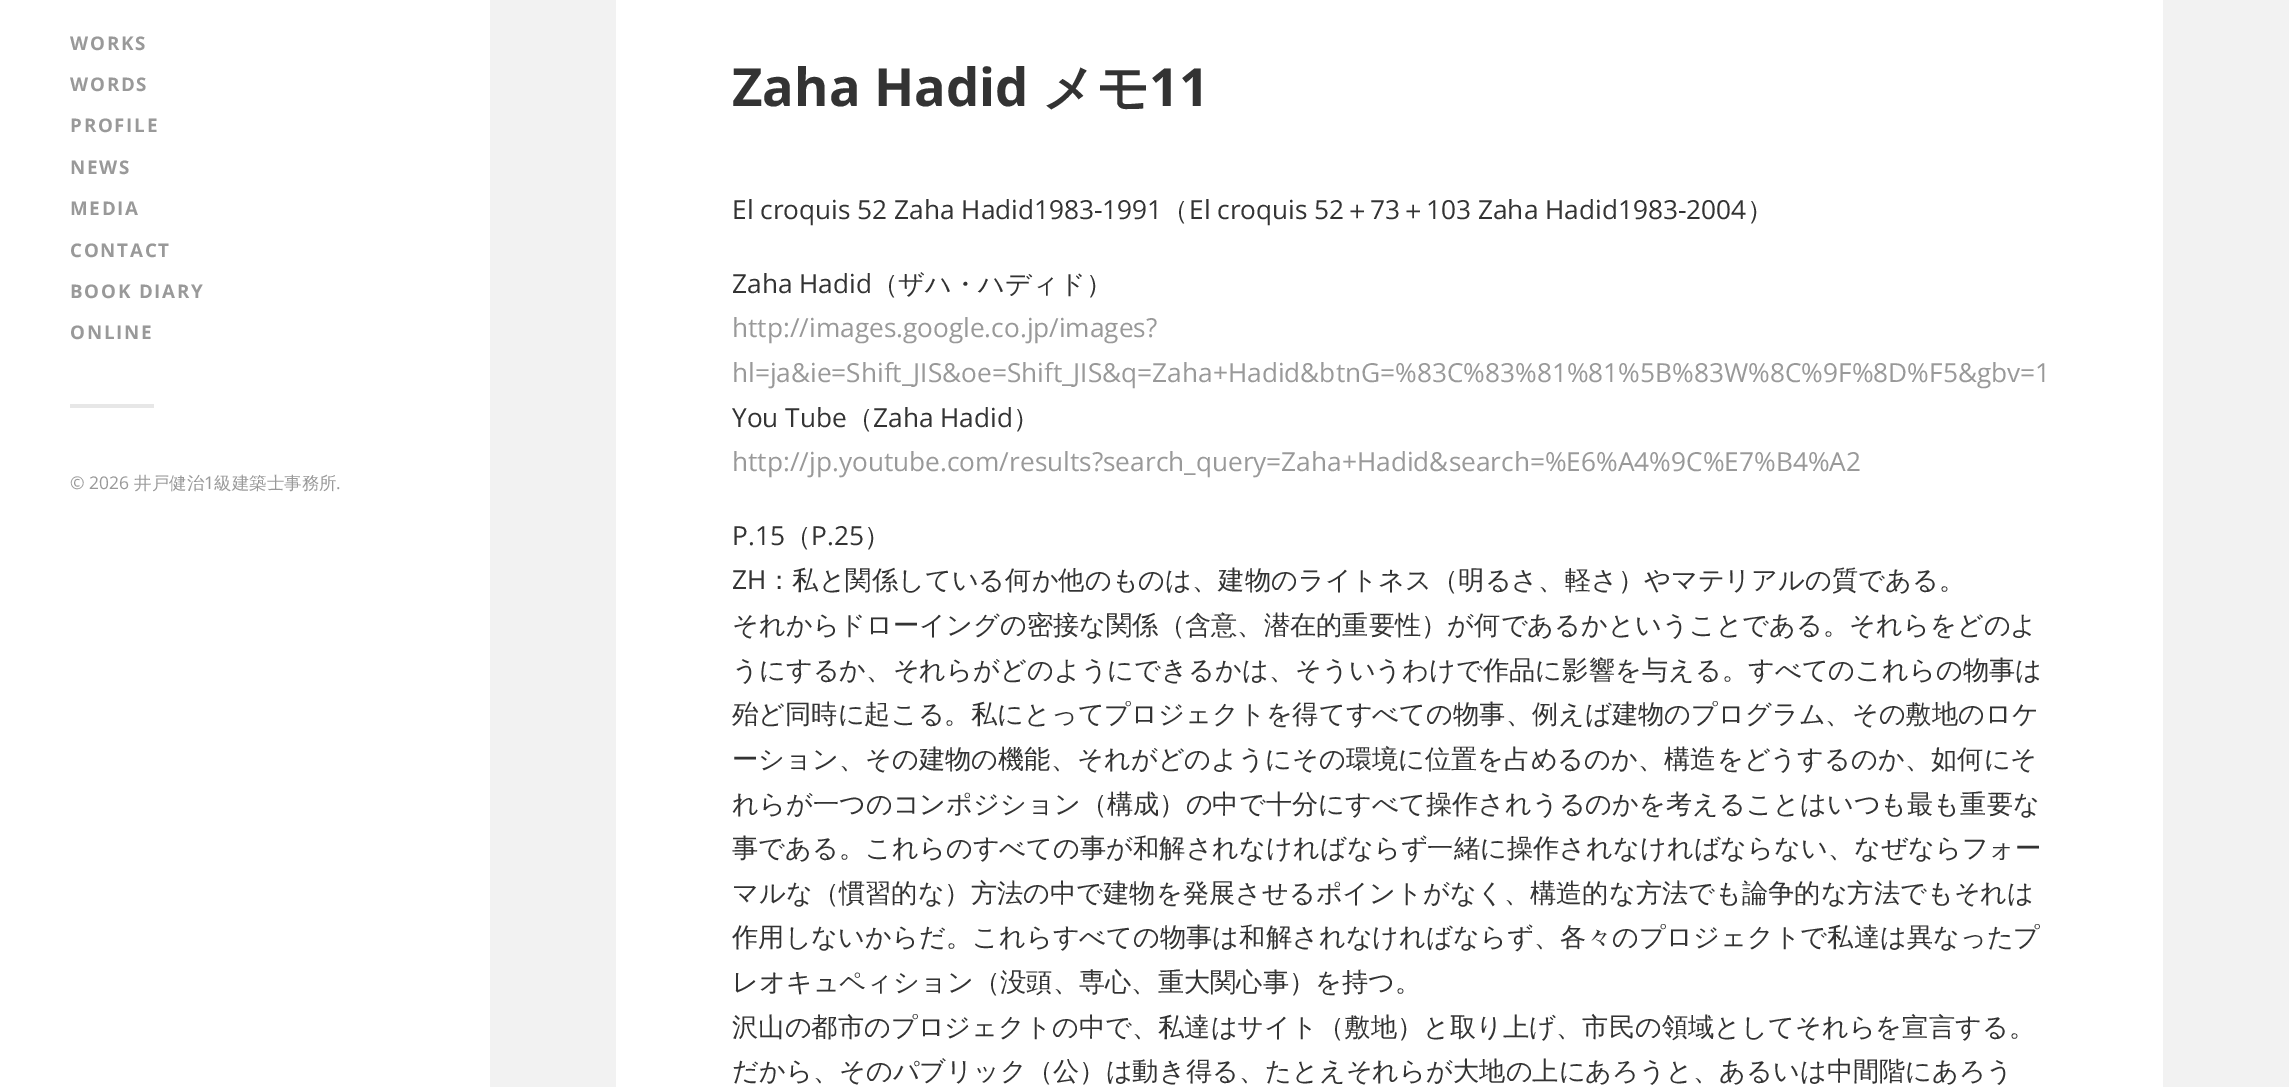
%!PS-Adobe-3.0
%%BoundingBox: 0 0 2289 1087
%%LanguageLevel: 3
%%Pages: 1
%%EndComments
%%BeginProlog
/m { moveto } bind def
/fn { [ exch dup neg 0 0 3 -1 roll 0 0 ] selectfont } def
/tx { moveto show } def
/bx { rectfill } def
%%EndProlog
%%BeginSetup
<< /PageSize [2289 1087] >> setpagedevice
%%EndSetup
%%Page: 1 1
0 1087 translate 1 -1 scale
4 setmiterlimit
0.949 setgray
0 0 2289 1087 bx
1 setgray
0 0 490 1087 bx
/OpenSans-Bold 18.75 fn
0.6 setgray
70 50 m 1.75 0 (WORKS) ashow
70 91 m 1.75 0 (WORDS) ashow
70 132 m 1.75 0 (PROFILE) ashow
70 174 m 1.75 0 (NEWS) ashow
70 215 m 1.75 0 (MEDIA) ashow
70 257 m 1.75 0 (CONTACT) ashow
70 298 m 1.75 0 (BOOK DIARY) ashow
70 339 m 1.75 0 (ONLINE) ashow
0.906 setgray
70 404 84 4 bx
/OpenSans-Regular 17.5 fn
0.6 setgray
(© 2026) 70 489 tx
/WenQuanYiZenHei-Medium 17.5 fn
(井戸健治) 134 489 tx
/OpenSans-Regular 17.5 fn
(1) 204 489 tx
/WenQuanYiZenHei-Medium 17.5 fn
(級建築士事務所) 214 489 tx
/OpenSans-Regular 17.5 fn
(.) 336 489 tx
1 setgray
616 0 1547 1087 bx
/OpenSans-Bold 52.5 fn
0.2 setgray
(Zaha Hadid) 732 106 tx
/WenQuanYiZenHei-Bold 52.5 fn
(メモ) 1042 106 tx
/OpenSans-Bold 52.5 fn
(11) 1149 106 tx
/OpenSans-Regular 26.25 fn
(El croquis 52 Zaha Hadid1983-1991) 732 219 tx
/WenQuanYiZenHei-Medium 26.25 fn
(（) 1162 219 tx
/OpenSans-Regular 26.25 fn
(El croquis 52) 1189 219 tx
/WenQuanYiZenHei-Medium 26.25 fn
(＋) 1344 219 tx
/OpenSans-Regular 26.25 fn
(73) 1370 219 tx
/WenQuanYiZenHei-Medium 26.25 fn
(＋) 1400 219 tx
/OpenSans-Regular 26.25 fn
(103 Zaha Hadid1983-2004) 1426 219 tx
/WenQuanYiZenHei-Medium 26.25 fn
(）) 1747 219 tx
/OpenSans-Regular 26.25 fn
(Zaha Hadid) 732 293 tx
/WenQuanYiZenHei-Medium 26.25 fn
(（ザハ・ハディド）) 872 293 tx
/OpenSans-Regular 26.25 fn
0.6 setgray
(http://images.google.co.jp/images?) 732 337 tx
(hl=ja&ie=Shift_JIS&oe=Shift_JIS&q=Zaha+Hadid&btnG=%83C%83%81%81%5B%83W%8C%9F%8D%F5&gbv=1) 732 382 tx
0.2 setgray
(You Tube) 732 427 tx
/WenQuanYiZenHei-Medium 26.25 fn
(（) 847 427 tx
/OpenSans-Regular 26.25 fn
(Zaha Hadid) 873 427 tx
/WenQuanYiZenHei-Medium 26.25 fn
(）) 1013 427 tx
/OpenSans-Regular 26.25 fn
0.6 setgray
(http://jp.youtube.com/results?search_query=Zaha+Hadid&search=%E6%A4%9C%E7%B4%A2) 732 471 tx
0.2 setgray
(P.15) 732 545 tx
/WenQuanYiZenHei-Medium 26.25 fn
(（) 785 545 tx
/OpenSans-Regular 26.25 fn
(P.25) 811 545 tx
/WenQuanYiZenHei-Medium 26.25 fn
(）) 864 545 tx
/OpenSans-Regular 26.25 fn
(ZH) 732 589 tx
/WenQuanYiZenHei-Medium 26.25 fn
(：私と関係している何か他のものは、建物のライトネス（明るさ、軽さ）やマテリアルの質である。) 766 589 tx
(それからドローイングの密接な関係（含意、潜在的重要性）が何であるかということである。それらをどのよ) 732 634 tx
(うにするか、それらがどのようにできるかは、そういうわけで作品に影響を与える。すべてのこれらの物事は) 732 679 tx
(殆ど同時に起こる。私にとってプロジェクトを得てすべての物事、例えば建物のプログラム、その敷地のロケ) 732 723 tx
(ーション、その建物の機能、それがどのようにその環境に位置を占めるのか、構造をどうするのか、如何にそ) 732 768 tx
(れらが一つのコンポジション（構成）の中で十分にすべて操作されうるのかを考えることはいつも最も重要な) 732 813 tx
(事である。これらのすべての事が和解されなければならず一緒に操作されなければならない、なぜならフォー) 732 857 tx
(マルな（慣習的な）方法の中で建物を発展させるポイントがなく、構造的な方法でも論争的な方法でもそれは) 732 902 tx
(作用しないからだ。これらすべての物事は和解されなければならず、各々のプロジェクトで私達は異なったプ) 732 946 tx
(レオキュペィション（没頭、専心、重大関心事）を持つ。) 732 991 tx
(沢山の都市のプロジェクトの中で、私達はサイト（敷地）と取り上げ、市民の領域としてそれらを宣言する。) 732 1036 tx
(だから、そのパブリック（公）は動き得る、たとえそれらが大地の上にあろうと、あるいは中間階にあろう) 732 1080 tx
showpage
%%EOF
